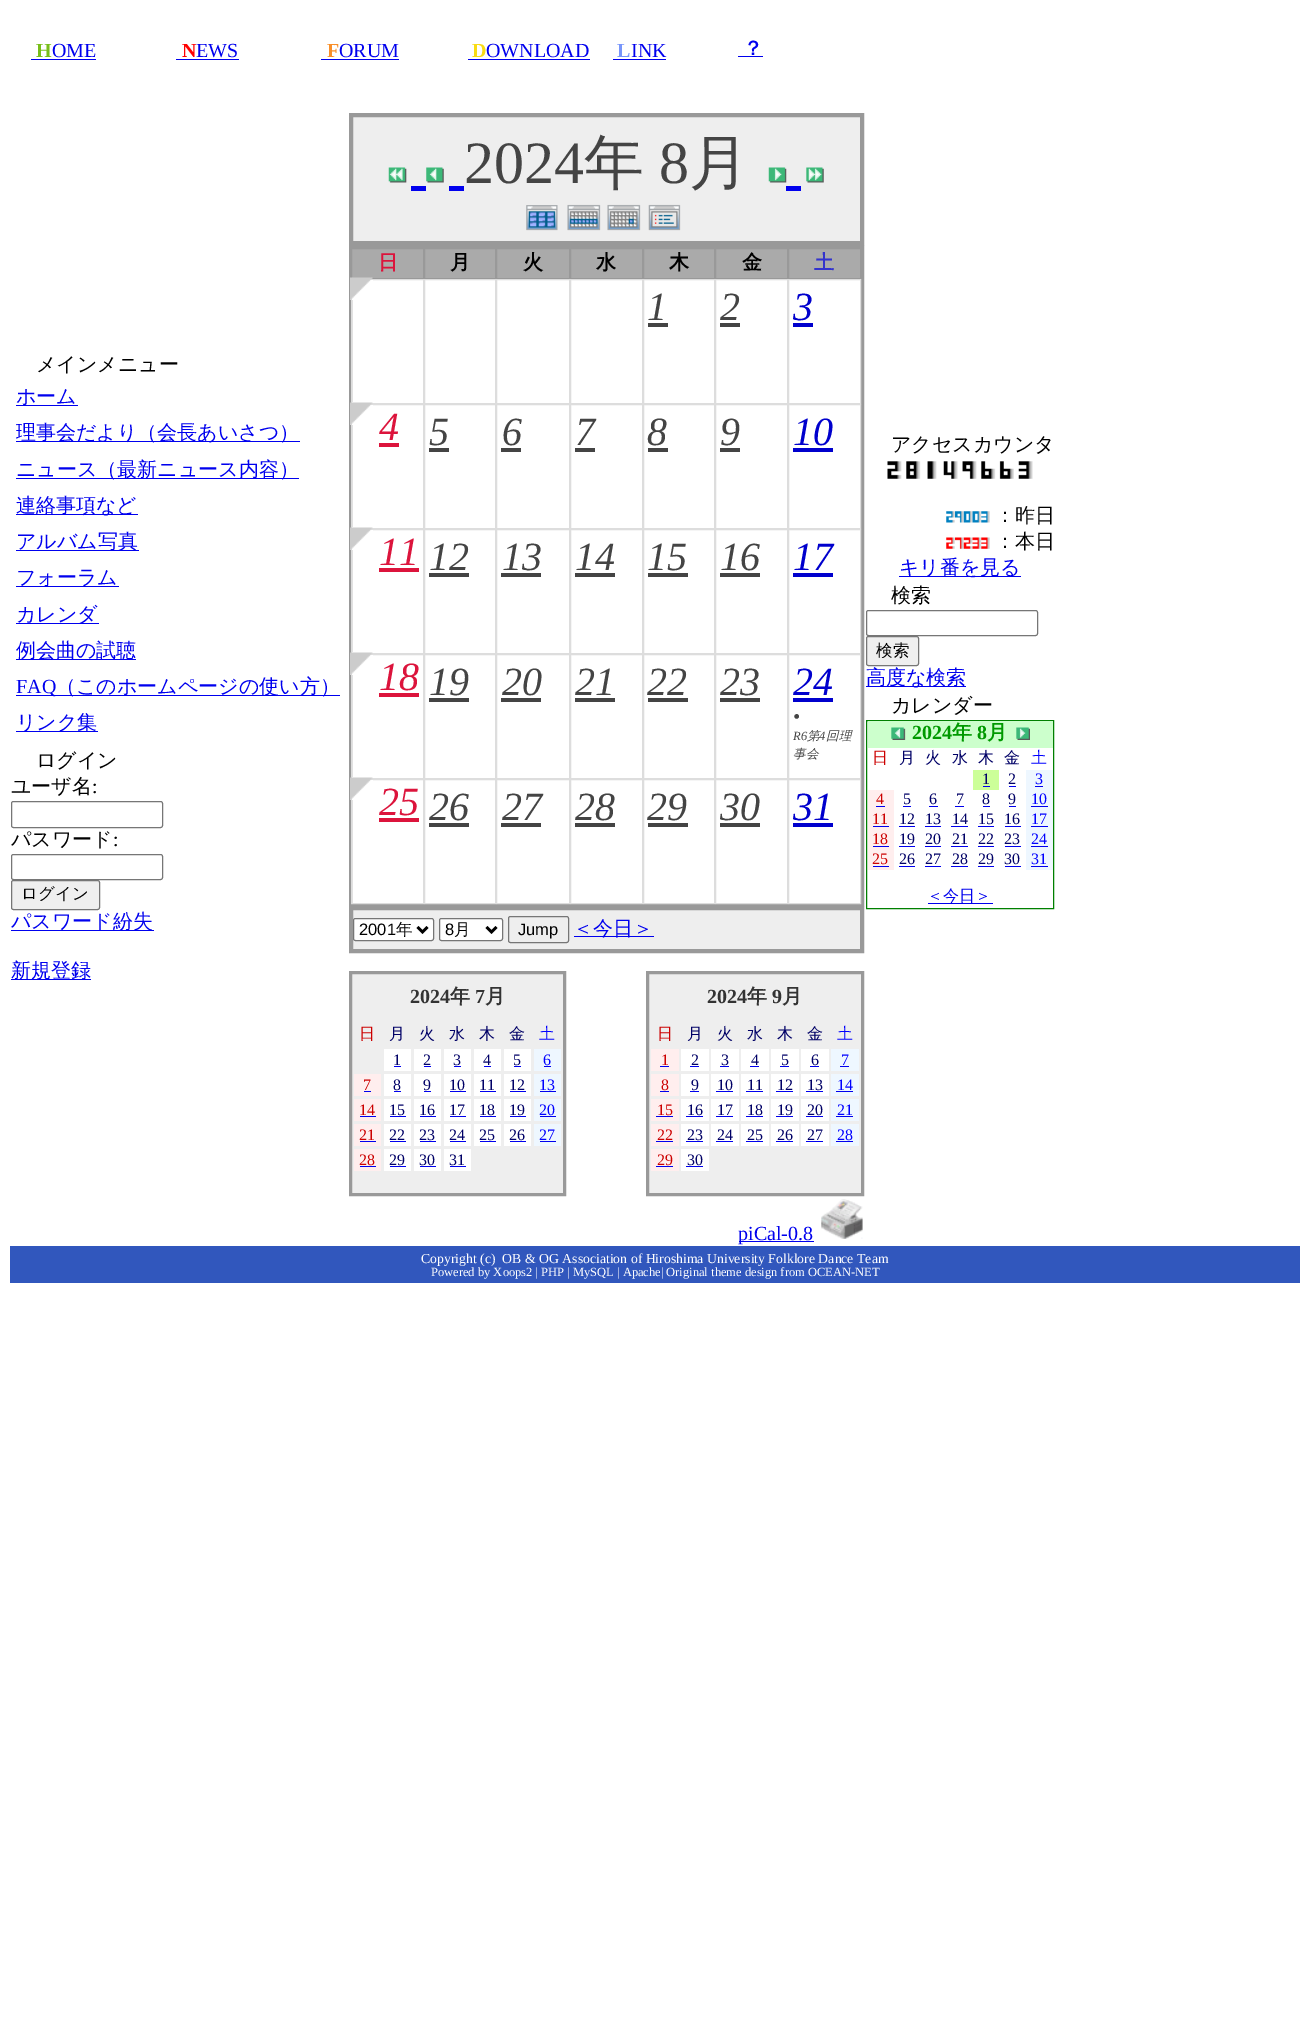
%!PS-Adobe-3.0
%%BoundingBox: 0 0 1309 2034
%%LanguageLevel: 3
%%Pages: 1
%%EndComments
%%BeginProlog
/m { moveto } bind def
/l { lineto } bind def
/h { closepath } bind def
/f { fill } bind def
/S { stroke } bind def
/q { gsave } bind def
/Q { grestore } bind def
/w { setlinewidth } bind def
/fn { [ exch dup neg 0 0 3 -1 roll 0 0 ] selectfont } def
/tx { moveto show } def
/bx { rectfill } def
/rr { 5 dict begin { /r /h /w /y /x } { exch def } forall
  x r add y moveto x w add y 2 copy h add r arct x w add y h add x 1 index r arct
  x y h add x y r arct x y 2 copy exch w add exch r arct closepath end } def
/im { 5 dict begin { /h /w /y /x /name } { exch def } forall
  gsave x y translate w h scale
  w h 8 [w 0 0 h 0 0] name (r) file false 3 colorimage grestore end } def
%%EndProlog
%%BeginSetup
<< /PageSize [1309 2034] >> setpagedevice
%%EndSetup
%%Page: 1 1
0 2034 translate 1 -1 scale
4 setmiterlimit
1 setgray
0 0 1309 2034 bx
/LiberationSerif-Bold 20 fn
0.471 0.745 0.098 setrgbcolor
(H) 36 57 tx
/LiberationSerif-Regular 20 fn
0 0 0.933 setrgbcolor
(OME) 52 57 tx
31 59 65 1 bx
/LiberationSerif-Bold 20 fn
1 0 0 setrgbcolor
(N) 182 57 tx
/LiberationSerif-Regular 20 fn
0 0 0.933 setrgbcolor
(EWS) 196 57 tx
176 59 63 1 bx
/LiberationSerif-Bold 20 fn
0.976 0.561 0.161 setrgbcolor
(F) 327 57 tx
/LiberationSerif-Regular 20 fn
0 0 0.933 setrgbcolor
(ORUM) 339 57 tx
321 59 78 1 bx
/LiberationSerif-Bold 20 fn
0.976 0.863 0.078 setrgbcolor
(D) 472 57 tx
0 0 0.933 setrgbcolor
468 59 122 1 bx
/LiberationSerif-Regular 20 fn
(OWNLOAD) 486 57 tx
/LiberationSerif-Bold 20 fn
0.471 0.588 0.984 setrgbcolor
(L) 617 57 tx
0 0 0.933 setrgbcolor
613 59 53 1 bx
/LiberationSerif-Regular 20 fn
(INK) 631 57 tx
/WenQuanYiZenHei-Bold 20 fn
(？) 743 55 tx
738 56 25 1 bx
/WenQuanYiZenHei-Medium 20 fn
0 setgray
(メインメニュー) 36 371 tx
0 0 0.933 setrgbcolor
16 405 62 1 bx
(ホーム) 16 403 tx
16 441 284 1 bx
(理事会だより（会長あいさつ）) 16 439 tx
16 478 283 1 bx
(ニュース（最新ニュース内容）) 16 476 tx
16 514 122 1 bx
(連絡事項など) 16 512 tx
16 550 123 1 bx
(アルバム写真) 16 548 tx
16 586 103 1 bx
(フォーラム) 16 584 tx
16 623 83 1 bx
(カレンダ) 16 621 tx
16 659 120 1 bx
(例会曲の試聴) 16 657 tx
16 695 324 1 bx
/LiberationSerif-Regular 20 fn
(FAQ) 16 693 tx
/WenQuanYiZenHei-Medium 20 fn
(（このホームページの使い方）) 56 693 tx
16 731 82 1 bx
(リンク集) 16 729 tx
0 setgray
(ログイン) 36 767 tx
(ユーザ名) 11 793 tx
/LiberationSerif-Regular 20 fn
(:) 92 793 tx
0.463 setgray
11.5 801.5 151 26 2 rr S
/WenQuanYiZenHei-Medium 20 fn
0 setgray
(パスワード) 11 846 tx
/LiberationSerif-Regular 20 fn
(:) 113 846 tx
0.463 setgray
11.5 854.5 151 25 2 rr S
0.937 setgray
11.5 880.5 88 29 2 rr q f Q
0.463 setgray
S
/WenQuanYiZenHei-Medium 16.5 fn
0 setgray
(ログイン) 21 899 tx
0 0 0.933 setrgbcolor
11 930 143 1 bx
/WenQuanYiZenHei-Medium 20 fn
(パスワード紛失) 11 928 tx
11 979 80 1 bx
(新規登録) 11 977 tx
0.933 setgray
351 115 m 862 115 l 862 243 l 351 243 l h q f Q
0.6 setgray
4 w
S
(image0.raw) 388 167 19 16 im
(image1.raw) 426 167 18 16 im
/LiberationSerif-Regular 60 fn
0.267 setgray
(2024) 464 183 tx
/WenQuanYiZenHei-Medium 60 fn
(年) 584 183 tx
/LiberationSerif-Regular 60 fn
(8) 659 183 tx
/WenQuanYiZenHei-Medium 60 fn
(月) 689 183 tx
(image2.raw) 768 167 19 16 im
(image3.raw) 806 167 18 16 im
0 0 0.933 setrgbcolor
411 186 15 5 bx
449 186 15 5 bx
786 186 15 5 bx
(image4.raw) 526 205 32 26 im
(image5.raw) 567 204 34 27 im
(image6.raw) 607 204 34 27 im
(image7.raw) 648 204 33 27 im
0.6 setgray
3 w
350.5 246.5 512 658 rectstroke
0.667 setgray
351.5 248.5 m 423.5 248.5 l 423.5 278.5 l 351.5 278.5 l h q f Q
0.6 setgray
1 w
S
/WenQuanYiZenHei-Bold 20 fn
0.863 0.078 0.235 setrgbcolor
(日) 378 269 tx
0.667 setgray
424.5 248.5 m 495.5 248.5 l 495.5 278.5 l 424.5 278.5 l h q f Q
0.6 setgray
S
0 setgray
(月) 450 269 tx
0.667 setgray
496.5 248.5 m 569.5 248.5 l 569.5 278.5 l 496.5 278.5 l h q f Q
0.6 setgray
S
0 setgray
(火) 523 269 tx
0.667 setgray
570.5 248.5 m 642.5 248.5 l 642.5 278.5 l 570.5 278.5 l h q f Q
0.6 setgray
S
0 setgray
(水) 596 269 tx
0.667 setgray
643.5 248.5 m 714.5 248.5 l 714.5 278.5 l 643.5 278.5 l h q f Q
0.6 setgray
S
0 setgray
(木) 669 269 tx
0.667 setgray
715.5 248.5 m 787.5 248.5 l 787.5 278.5 l 715.5 278.5 l h q f Q
0.6 setgray
S
0 setgray
(金) 742 269 tx
0.667 setgray
788.5 248.5 m 860.5 248.5 l 860.5 278.5 l 788.5 278.5 l h q f Q
0.6 setgray
S
0.2 0.2 0.804 setrgbcolor
(土) 814 269 tx
0.867 setgray
351.5 279.5 72 124 rectstroke
(image8.raw) 350 277 23 23 im
424.5 279.5 71 124 rectstroke
496.5 279.5 73 124 rectstroke
570.5 279.5 72 124 rectstroke
643.5 279.5 71 124 rectstroke
/LiberationSerif-Italic 40 fn
0.267 setgray
(1) 647 320 tx
648 323 20 4 bx
0.867 setgray
715.5 279.5 72 124 rectstroke
0.267 setgray
(2) 720 320 tx
720 323 20 4 bx
0.867 setgray
788.5 279.5 72 124 rectstroke
0 0 0.804 setrgbcolor
(3) 793 320 tx
793 323 20 4 bx
0.867 setgray
351.5 404.5 72 124 rectstroke
(image9.raw) 350 402 23 23 im
0.863 0.078 0.235 setrgbcolor
(4) 379 440 tx
379 443 20 4 bx
0.867 setgray
424.5 404.5 71 124 rectstroke
0.267 setgray
(5) 429 445 tx
429 448 20 4 bx
0.867 setgray
496.5 404.5 73 124 rectstroke
0.267 setgray
(6) 502 445 tx
501 448 20 4 bx
0.867 setgray
570.5 404.5 72 124 rectstroke
0.267 setgray
(7) 575 445 tx
575 448 20 4 bx
0.867 setgray
643.5 404.5 71 124 rectstroke
0.267 setgray
(8) 647 445 tx
648 448 20 4 bx
0.867 setgray
715.5 404.5 72 124 rectstroke
0.267 setgray
(9) 720 445 tx
720 448 20 4 bx
0.867 setgray
788.5 404.5 72 124 rectstroke
0 0 0.804 setrgbcolor
(10) 793 445 tx
793 448 40 4 bx
0.867 setgray
351.5 529.5 72 124 rectstroke
(image9.raw) 350 527 23 23 im
0.863 0.078 0.235 setrgbcolor
(11) 379 565 tx
379 568 40 4 bx
0.867 setgray
424.5 529.5 71 124 rectstroke
0.267 setgray
(12) 429 570 tx
429 573 40 4 bx
0.867 setgray
496.5 529.5 73 124 rectstroke
0.267 setgray
(13) 502 570 tx
501 573 40 4 bx
0.867 setgray
570.5 529.5 72 124 rectstroke
0.267 setgray
(14) 575 570 tx
575 573 40 4 bx
0.867 setgray
643.5 529.5 71 124 rectstroke
0.267 setgray
(15) 647 570 tx
648 573 40 4 bx
0.867 setgray
715.5 529.5 72 124 rectstroke
0.267 setgray
(16) 720 570 tx
720 573 40 4 bx
0.867 setgray
788.5 529.5 72 124 rectstroke
0 0 0.804 setrgbcolor
(17) 793 570 tx
793 573 40 4 bx
0.867 setgray
351.5 654.5 72 124 rectstroke
(image9.raw) 350 652 23 23 im
0.863 0.078 0.235 setrgbcolor
(18) 379 690 tx
379 693 40 4 bx
0.867 setgray
424.5 654.5 71 124 rectstroke
0.267 setgray
(19) 429 695 tx
429 698 40 4 bx
0.867 setgray
496.5 654.5 73 124 rectstroke
0.267 setgray
(20) 502 695 tx
501 698 40 4 bx
0.867 setgray
570.5 654.5 72 124 rectstroke
0.267 setgray
(21) 575 695 tx
575 698 40 4 bx
0.867 setgray
643.5 654.5 71 124 rectstroke
0.267 setgray
(22) 647 695 tx
648 698 40 4 bx
0.867 setgray
715.5 654.5 72 124 rectstroke
0.267 setgray
(23) 720 695 tx
720 698 40 4 bx
0.867 setgray
788.5 654.5 72 124 rectstroke
0 0 0.804 setrgbcolor
(24) 793 695 tx
793 698 40 4 bx
/LiberationSerif-Italic 20 fn
0.267 setgray
(•) 793 723 tx
/LiberationSerif-Italic 12.5 fn
(R6) 793 740 tx
/WenQuanYiZenHei-MediumItalic 12.5 fn
(第) 807 740 tx
/LiberationSerif-Italic 12.5 fn
(4) 819 740 tx
/WenQuanYiZenHei-MediumItalic 12.5 fn
(回理) 826 740 tx
(事会) 793 758 tx
0.867 setgray
351.5 779.5 72 124 rectstroke
(image10.raw) 350 777 23 23 im
/LiberationSerif-Italic 40 fn
0.863 0.078 0.235 setrgbcolor
(25) 379 815 tx
379 818 40 4 bx
0.867 setgray
424.5 779.5 71 124 rectstroke
0.267 setgray
(26) 429 820 tx
429 823 40 4 bx
0.867 setgray
496.5 779.5 73 124 rectstroke
0.267 setgray
(27) 502 820 tx
501 823 40 4 bx
0.867 setgray
570.5 779.5 72 124 rectstroke
0.267 setgray
(28) 575 820 tx
575 823 40 4 bx
0.867 setgray
643.5 779.5 71 124 rectstroke
0.267 setgray
(29) 647 820 tx
648 823 40 4 bx
0.867 setgray
715.5 779.5 72 124 rectstroke
0.267 setgray
(30) 720 820 tx
720 823 40 4 bx
0.867 setgray
788.5 779.5 72 124 rectstroke
0 0 0.804 setrgbcolor
(31) 793 820 tx
793 823 40 4 bx
0.933 setgray
351 908 m 862 908 l 862 951 l 351 951 l h q f Q
0.6 setgray
4 w
S
1 setgray
353.5 918.5 80 22 2 rr q f Q
0.463 setgray
1 w
S
0 setgray
2.5 w
417.5 927 m 422.5 932 l 427.5 927 l S
/LiberationSans-Regular 16.5 fn
(2001) 359 935 tx
/WenQuanYiZenHei-Medium 16.5 fn
(年) 396 935 tx
1 setgray
439.5 918.5 63 22 2 rr q f Q
0.463 setgray
1 w
S
0 setgray
2.5 w
486.5 927 m 491.5 932 l 496.5 927 l S
/LiberationSans-Regular 16.5 fn
(8) 445 935 tx
/WenQuanYiZenHei-Medium 16.5 fn
(月) 454 935 tx
0.463 setgray
1 w
508.5 916.5 60 26 2 rr S
/LiberationSans-Regular 16.5 fn
0 setgray
(Jump) 518 935 tx
0 0 0.933 setrgbcolor
574 936 80 1 bx
/WenQuanYiZenHei-Medium 20 fn
(＜今日＞) 573 935 tx
0.933 setgray
350.5 972.5 m 564.5 972.5 l 564.5 1194.5 l 350.5 1194.5 l h q f Q
0.6 setgray
3 w
S
/LiberationSerif-Bold 20 fn
0.2 setgray
(2024) 410 1003 tx
/WenQuanYiZenHei-Bold 20 fn
(年) 450 1003 tx
/LiberationSerif-Bold 20 fn
(7) 475 1003 tx
/WenQuanYiZenHei-Bold 20 fn
(月) 485 1003 tx
/WenQuanYiZenHei-Medium 16 fn
0.8 0 0 setrgbcolor
(日) 359 1039 tx
0 0 0.4 setrgbcolor
(月) 389 1039 tx
(火) 419 1039 tx
(水) 449 1039 tx
(木) 479 1039 tx
(金) 509 1039 tx
0 0 1 setrgbcolor
(土) 539 1039 tx
1 setgray
384 1049 27 22 bx
/LiberationSerif-Regular 16 fn
0 0 0.4 setrgbcolor
(1) 393 1065 tx
0 0 0.933 setrgbcolor
394 1066 7 1 bx
1 setgray
414 1049 27 22 bx
0 0 0.4 setrgbcolor
(2) 423 1065 tx
0 0 0.933 setrgbcolor
424 1066 7 1 bx
1 setgray
444 1049 27 22 bx
0 0 0.4 setrgbcolor
(3) 453 1065 tx
0 0 0.933 setrgbcolor
454 1066 7 1 bx
1 setgray
474 1049 27 22 bx
0 0 0.4 setrgbcolor
(4) 483 1065 tx
0 0 0.933 setrgbcolor
484 1066 7 1 bx
1 setgray
504 1049 27 22 bx
0 0 0.4 setrgbcolor
(5) 513 1065 tx
0 0 0.933 setrgbcolor
514 1066 7 1 bx
0.933 0.969 1 setrgbcolor
534 1049 27 22 bx
0 0 1 setrgbcolor
(6) 543 1065 tx
0 0 0.933 setrgbcolor
544 1066 7 1 bx
1 0.933 0.933 setrgbcolor
354 1074 27 22 bx
0.8 0 0 setrgbcolor
(7) 363 1090 tx
0 0 0.933 setrgbcolor
364 1091 7 1 bx
1 setgray
384 1074 27 22 bx
0 0 0.4 setrgbcolor
(8) 393 1090 tx
0 0 0.933 setrgbcolor
394 1091 7 1 bx
1 setgray
414 1074 27 22 bx
0 0 0.4 setrgbcolor
(9) 423 1090 tx
0 0 0.933 setrgbcolor
424 1091 7 1 bx
1 setgray
444 1074 27 22 bx
0 0 0.4 setrgbcolor
(10) 449 1090 tx
0 0 0.933 setrgbcolor
450 1091 16 1 bx
1 setgray
474 1074 27 22 bx
0 0 0.4 setrgbcolor
(11) 479 1090 tx
0 0 0.933 setrgbcolor
480 1091 16 1 bx
1 setgray
504 1074 27 22 bx
0 0 0.4 setrgbcolor
(12) 509 1090 tx
0 0 0.933 setrgbcolor
510 1091 16 1 bx
0.933 0.969 1 setrgbcolor
534 1074 27 22 bx
0 0 1 setrgbcolor
(13) 539 1090 tx
0 0 0.933 setrgbcolor
540 1091 16 1 bx
1 0.933 0.933 setrgbcolor
354 1099 27 22 bx
0.8 0 0 setrgbcolor
(14) 359 1115 tx
0 0 0.933 setrgbcolor
360 1116 16 1 bx
1 setgray
384 1099 27 22 bx
0 0 0.4 setrgbcolor
(15) 389 1115 tx
0 0 0.933 setrgbcolor
390 1116 16 1 bx
1 setgray
414 1099 27 22 bx
0 0 0.4 setrgbcolor
(16) 419 1115 tx
0 0 0.933 setrgbcolor
420 1116 16 1 bx
1 setgray
444 1099 27 22 bx
0 0 0.4 setrgbcolor
(17) 449 1115 tx
0 0 0.933 setrgbcolor
450 1116 16 1 bx
1 setgray
474 1099 27 22 bx
0 0 0.4 setrgbcolor
(18) 479 1115 tx
0 0 0.933 setrgbcolor
480 1116 16 1 bx
1 setgray
504 1099 27 22 bx
0 0 0.4 setrgbcolor
(19) 509 1115 tx
0 0 0.933 setrgbcolor
510 1116 16 1 bx
0.933 0.969 1 setrgbcolor
534 1099 27 22 bx
0 0 1 setrgbcolor
(20) 539 1115 tx
0 0 0.933 setrgbcolor
540 1116 16 1 bx
1 0.933 0.933 setrgbcolor
354 1124 27 22 bx
0.8 0 0 setrgbcolor
(21) 359 1140 tx
0 0 0.933 setrgbcolor
360 1141 16 1 bx
1 setgray
384 1124 27 22 bx
0 0 0.4 setrgbcolor
(22) 389 1140 tx
0 0 0.933 setrgbcolor
390 1141 16 1 bx
1 setgray
414 1124 27 22 bx
0 0 0.4 setrgbcolor
(23) 419 1140 tx
0 0 0.933 setrgbcolor
420 1141 16 1 bx
1 setgray
444 1124 27 22 bx
0 0 0.4 setrgbcolor
(24) 449 1140 tx
0 0 0.933 setrgbcolor
450 1141 16 1 bx
1 setgray
474 1124 27 22 bx
0 0 0.4 setrgbcolor
(25) 479 1140 tx
0 0 0.933 setrgbcolor
480 1141 16 1 bx
1 setgray
504 1124 27 22 bx
0 0 0.4 setrgbcolor
(26) 509 1140 tx
0 0 0.933 setrgbcolor
510 1141 16 1 bx
0.933 0.969 1 setrgbcolor
534 1124 27 22 bx
0 0 1 setrgbcolor
(27) 539 1140 tx
0 0 0.933 setrgbcolor
540 1141 16 1 bx
1 0.933 0.933 setrgbcolor
354 1149 27 22 bx
0.8 0 0 setrgbcolor
(28) 359 1165 tx
0 0 0.933 setrgbcolor
360 1166 16 1 bx
1 setgray
384 1149 27 22 bx
0 0 0.4 setrgbcolor
(29) 389 1165 tx
0 0 0.933 setrgbcolor
390 1166 16 1 bx
1 setgray
414 1149 27 22 bx
0 0 0.4 setrgbcolor
(30) 419 1165 tx
0 0 0.933 setrgbcolor
420 1166 16 1 bx
1 setgray
444 1149 27 22 bx
0 0 0.4 setrgbcolor
(31) 449 1165 tx
0 0 0.933 setrgbcolor
450 1166 16 1 bx
0.933 setgray
647.5 972.5 m 862.5 972.5 l 862.5 1194.5 l 647.5 1194.5 l h q f Q
0.6 setgray
S
/LiberationSerif-Bold 20 fn
0.2 setgray
(2024) 707 1003 tx
/WenQuanYiZenHei-Bold 20 fn
(年) 747 1003 tx
/LiberationSerif-Bold 20 fn
(9) 772 1003 tx
/WenQuanYiZenHei-Bold 20 fn
(月) 782 1003 tx
/WenQuanYiZenHei-Medium 16 fn
0.8 0 0 setrgbcolor
(日) 657 1039 tx
0 0 0.4 setrgbcolor
(月) 687 1039 tx
(火) 717 1039 tx
(水) 747 1039 tx
(木) 777 1039 tx
(金) 807 1039 tx
0 0 1 setrgbcolor
(土) 837 1039 tx
1 0.933 0.933 setrgbcolor
651 1049 28 22 bx
/LiberationSerif-Regular 16 fn
0.8 0 0 setrgbcolor
(1) 661 1065 tx
0 0 0.933 setrgbcolor
660 1066 9 1 bx
1 setgray
681 1049 28 22 bx
0 0 0.4 setrgbcolor
(2) 691 1065 tx
0 0 0.933 setrgbcolor
690 1066 9 1 bx
1 setgray
711 1049 28 22 bx
0 0 0.4 setrgbcolor
(3) 721 1065 tx
0 0 0.933 setrgbcolor
720 1066 9 1 bx
1 setgray
741 1049 28 22 bx
0 0 0.4 setrgbcolor
(4) 751 1065 tx
0 0 0.933 setrgbcolor
750 1066 9 1 bx
1 setgray
771 1049 28 22 bx
0 0 0.4 setrgbcolor
(5) 781 1065 tx
0 0 0.933 setrgbcolor
780 1066 9 1 bx
1 setgray
801 1049 28 22 bx
0 0 0.4 setrgbcolor
(6) 811 1065 tx
0 0 0.933 setrgbcolor
810 1066 9 1 bx
0.933 0.969 1 setrgbcolor
831 1049 28 22 bx
0 0 1 setrgbcolor
(7) 841 1065 tx
0 0 0.933 setrgbcolor
840 1066 9 1 bx
1 0.933 0.933 setrgbcolor
651 1074 28 22 bx
0.8 0 0 setrgbcolor
(8) 661 1090 tx
0 0 0.933 setrgbcolor
660 1091 9 1 bx
1 setgray
681 1074 28 22 bx
0 0 0.4 setrgbcolor
(9) 691 1090 tx
0 0 0.933 setrgbcolor
690 1091 9 1 bx
1 setgray
711 1074 28 22 bx
0 0 0.4 setrgbcolor
(10) 717 1090 tx
0 0 0.933 setrgbcolor
716 1091 17 1 bx
1 setgray
741 1074 28 22 bx
0 0 0.4 setrgbcolor
(11) 747 1090 tx
0 0 0.933 setrgbcolor
746 1091 17 1 bx
1 setgray
771 1074 28 22 bx
0 0 0.4 setrgbcolor
(12) 777 1090 tx
0 0 0.933 setrgbcolor
776 1091 17 1 bx
1 setgray
801 1074 28 22 bx
0 0 0.4 setrgbcolor
(13) 807 1090 tx
0 0 0.933 setrgbcolor
806 1091 17 1 bx
0.933 0.969 1 setrgbcolor
831 1074 28 22 bx
0 0 1 setrgbcolor
(14) 837 1090 tx
0 0 0.933 setrgbcolor
836 1091 17 1 bx
1 0.933 0.933 setrgbcolor
651 1099 28 22 bx
0.8 0 0 setrgbcolor
(15) 657 1115 tx
0 0 0.933 setrgbcolor
656 1116 17 1 bx
1 setgray
681 1099 28 22 bx
0 0 0.4 setrgbcolor
(16) 687 1115 tx
0 0 0.933 setrgbcolor
686 1116 17 1 bx
1 setgray
711 1099 28 22 bx
0 0 0.4 setrgbcolor
(17) 717 1115 tx
0 0 0.933 setrgbcolor
716 1116 17 1 bx
1 setgray
741 1099 28 22 bx
0 0 0.4 setrgbcolor
(18) 747 1115 tx
0 0 0.933 setrgbcolor
746 1116 17 1 bx
1 setgray
771 1099 28 22 bx
0 0 0.4 setrgbcolor
(19) 777 1115 tx
0 0 0.933 setrgbcolor
776 1116 17 1 bx
1 setgray
801 1099 28 22 bx
0 0 0.4 setrgbcolor
(20) 807 1115 tx
0 0 0.933 setrgbcolor
806 1116 17 1 bx
0.933 0.969 1 setrgbcolor
831 1099 28 22 bx
0 0 1 setrgbcolor
(21) 837 1115 tx
0 0 0.933 setrgbcolor
836 1116 17 1 bx
1 0.933 0.933 setrgbcolor
651 1124 28 22 bx
0.8 0 0 setrgbcolor
(22) 657 1140 tx
0 0 0.933 setrgbcolor
656 1141 17 1 bx
1 setgray
681 1124 28 22 bx
0 0 0.4 setrgbcolor
(23) 687 1140 tx
0 0 0.933 setrgbcolor
686 1141 17 1 bx
1 setgray
711 1124 28 22 bx
0 0 0.4 setrgbcolor
(24) 717 1140 tx
0 0 0.933 setrgbcolor
716 1141 17 1 bx
1 setgray
741 1124 28 22 bx
0 0 0.4 setrgbcolor
(25) 747 1140 tx
0 0 0.933 setrgbcolor
746 1141 17 1 bx
1 setgray
771 1124 28 22 bx
0 0 0.4 setrgbcolor
(26) 777 1140 tx
0 0 0.933 setrgbcolor
776 1141 17 1 bx
1 setgray
801 1124 28 22 bx
0 0 0.4 setrgbcolor
(27) 807 1140 tx
0 0 0.933 setrgbcolor
806 1141 17 1 bx
0.933 0.969 1 setrgbcolor
831 1124 28 22 bx
0 0 1 setrgbcolor
(28) 837 1140 tx
0 0 0.933 setrgbcolor
836 1141 17 1 bx
1 0.933 0.933 setrgbcolor
651 1149 28 22 bx
0.8 0 0 setrgbcolor
(29) 657 1165 tx
0 0 0.933 setrgbcolor
656 1166 17 1 bx
1 setgray
681 1149 28 22 bx
0 0 0.4 setrgbcolor
(30) 687 1165 tx
0 0 0.933 setrgbcolor
686 1166 17 1 bx
739 1241 75 1 bx
/LiberationSerif-Regular 20 fn
(piCal-0.8) 738 1240 tx
(image11.raw) 821 1199 42 40 im
/WenQuanYiZenHei-Medium 20 fn
0 setgray
(アクセスカウンタ) 891 451 tx
(image12.raw) 887 461 15 18 im
(image13.raw) 906 461 15 18 im
(image14.raw) 927 461 10 18 im
(image15.raw) 943 461 15 18 im
(image16.raw) 962 461 15 18 im
(image17.raw) 981 461 15 18 im
(image18.raw) 999 461 15 18 im
(image19.raw) 1018 461 15 18 im
(image20.raw) 946 511 9 12 im
(image21.raw) 955 511 9 12 im
(image22.raw) 963 511 10 12 im
(image23.raw) 972 511 10 12 im
(image24.raw) 981 511 9 12 im
(：昨日) 995 522 tx
(image25.raw) 946 537 9 12 im
(image26.raw) 955 537 9 12 im
(image27.raw) 963 537 10 12 im
(image28.raw) 972 537 10 12 im
(image29.raw) 981 537 9 12 im
(：本日) 995 548 tx
0 0 0.933 setrgbcolor
899 576 122 1 bx
(キリ番を見る) 899 574 tx
0 setgray
(検索) 891 602 tx
0.463 setgray
1 w
866.5 610.5 171 25 2 rr S
0.937 setgray
866.5 636.5 52 29 2 rr q f Q
0.463 setgray
S
/WenQuanYiZenHei-Medium 16.5 fn
0 setgray
(検索) 876 656 tx
0 0 0.933 setrgbcolor
866 686 100 1 bx
/WenQuanYiZenHei-Medium 20 fn
(高度な検索) 866 684 tx
0 setgray
(カレンダー) 891 712 tx
0 0.502 0 setrgbcolor
866.5 720.5 187 188 rectstroke
0.8 1 0.8 setrgbcolor
868 721 185 27 bx
(image30.raw) 891 727 15 13 im
/LiberationSerif-Bold 20 fn
0 0.6 0 setrgbcolor
(2024) 912 739 tx
/WenQuanYiZenHei-Bold 20 fn
(年) 952 739 tx
/LiberationSerif-Bold 20 fn
(8) 977 739 tx
/WenQuanYiZenHei-Bold 20 fn
(月) 987 739 tx
(image31.raw) 1016 727 14 13 im
/WenQuanYiZenHei-Medium 16 fn
0.8 0 0 setrgbcolor
(日) 872 763 tx
0 0 0.4 setrgbcolor
(月) 899 763 tx
(火) 925 763 tx
(水) 952 763 tx
(木) 978 763 tx
(金) 1004 763 tx
0 0 1 setrgbcolor
(土) 1031 763 tx
0.8 1 0.6 setrgbcolor
973 770 26 20 bx
/LiberationSerif-Regular 16 fn
0 0 0.4 setrgbcolor
(1) 982 784 tx
0 0 0.933 setrgbcolor
983 786 7 1 bx
0 0 0.4 setrgbcolor
(2) 1008 784 tx
0 0 0.933 setrgbcolor
1009 786 7 1 bx
0.933 0.969 1 setrgbcolor
1026 770 27 100 bx
0 0 1 setrgbcolor
(3) 1035 784 tx
0 0 0.933 setrgbcolor
1035 786 8 1 bx
1 0.933 0.933 setrgbcolor
868 790 26 80 bx
0.8 0 0 setrgbcolor
(4) 876 804 tx
0 0 0.933 setrgbcolor
876 806 9 1 bx
0 0 0.4 setrgbcolor
(5) 903 804 tx
0 0 0.933 setrgbcolor
903 806 8 1 bx
0 0 0.4 setrgbcolor
(6) 929 804 tx
0 0 0.933 setrgbcolor
929 806 9 1 bx
0 0 0.4 setrgbcolor
(7) 956 804 tx
0 0 0.933 setrgbcolor
955 806 9 1 bx
0 0 0.4 setrgbcolor
(8) 982 804 tx
0 0 0.933 setrgbcolor
983 806 7 1 bx
0 0 0.4 setrgbcolor
(9) 1008 804 tx
0 0 0.933 setrgbcolor
1009 806 7 1 bx
0 0 1 setrgbcolor
(10) 1031 804 tx
0 0 0.933 setrgbcolor
1031 806 17 1 bx
0.8 0 0 setrgbcolor
(11) 872 824 tx
0 0 0.933 setrgbcolor
873 826 16 1 bx
0 0 0.4 setrgbcolor
(12) 899 824 tx
0 0 0.933 setrgbcolor
899 826 16 1 bx
0 0 0.4 setrgbcolor
(13) 925 824 tx
0 0 0.933 setrgbcolor
925 826 16 1 bx
0 0 0.4 setrgbcolor
(14) 952 824 tx
0 0 0.933 setrgbcolor
951 826 17 1 bx
0 0 0.4 setrgbcolor
(15) 978 824 tx
0 0 0.933 setrgbcolor
978 826 16 1 bx
0 0 0.4 setrgbcolor
(16) 1004 824 tx
0 0 0.933 setrgbcolor
1005 826 16 1 bx
0 0 1 setrgbcolor
(17) 1031 824 tx
0 0 0.933 setrgbcolor
1031 826 17 1 bx
0.8 0 0 setrgbcolor
(18) 872 844 tx
0 0 0.933 setrgbcolor
873 846 16 1 bx
0 0 0.4 setrgbcolor
(19) 899 844 tx
0 0 0.933 setrgbcolor
899 846 16 1 bx
0 0 0.4 setrgbcolor
(20) 925 844 tx
0 0 0.933 setrgbcolor
925 846 16 1 bx
0 0 0.4 setrgbcolor
(21) 952 844 tx
0 0 0.933 setrgbcolor
951 846 17 1 bx
0 0 0.4 setrgbcolor
(22) 978 844 tx
0 0 0.933 setrgbcolor
978 846 16 1 bx
0 0 0.4 setrgbcolor
(23) 1004 844 tx
0 0 0.933 setrgbcolor
1005 846 16 1 bx
0 0 1 setrgbcolor
(24) 1031 844 tx
0 0 0.933 setrgbcolor
1031 846 17 1 bx
0.8 0 0 setrgbcolor
(25) 872 864 tx
0 0 0.933 setrgbcolor
873 866 16 1 bx
0 0 0.4 setrgbcolor
(26) 899 864 tx
0 0 0.933 setrgbcolor
899 866 16 1 bx
0 0 0.4 setrgbcolor
(27) 925 864 tx
0 0 0.933 setrgbcolor
925 866 16 1 bx
0 0 0.4 setrgbcolor
(28) 952 864 tx
0 0 0.933 setrgbcolor
951 866 17 1 bx
0 0 0.4 setrgbcolor
(29) 978 864 tx
0 0 0.933 setrgbcolor
978 866 16 1 bx
0 0 0.4 setrgbcolor
(30) 1004 864 tx
0 0 0.933 setrgbcolor
1005 866 16 1 bx
0 0 1 setrgbcolor
(31) 1031 864 tx
0 0 0.933 setrgbcolor
1031 866 17 1 bx
928 903 65 1 bx
/WenQuanYiZenHei-Medium 16 fn
(＜今日＞) 927 901 tx
0.192 0.341 0.741 setrgbcolor
10 1246 1290 37 bx
/LiberationSerif-Regular 13.75 fn
1 setgray
(Copyright \(c\)  OB & OG Association of Hiroshima University Folklore Dance Team) 421 1263 tx
/LiberationSerif-Regular 12.5 fn
(Powered by Xoops2 | PHP | MySQL | Apache| Original theme design from OCEAN-NET) 431 1276 tx
showpage
%%EOF
